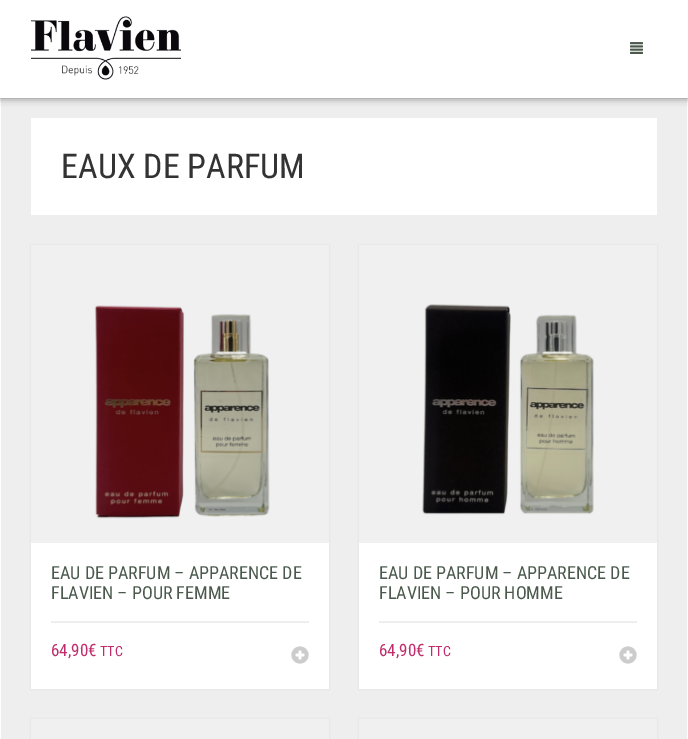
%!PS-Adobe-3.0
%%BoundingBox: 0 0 688 739
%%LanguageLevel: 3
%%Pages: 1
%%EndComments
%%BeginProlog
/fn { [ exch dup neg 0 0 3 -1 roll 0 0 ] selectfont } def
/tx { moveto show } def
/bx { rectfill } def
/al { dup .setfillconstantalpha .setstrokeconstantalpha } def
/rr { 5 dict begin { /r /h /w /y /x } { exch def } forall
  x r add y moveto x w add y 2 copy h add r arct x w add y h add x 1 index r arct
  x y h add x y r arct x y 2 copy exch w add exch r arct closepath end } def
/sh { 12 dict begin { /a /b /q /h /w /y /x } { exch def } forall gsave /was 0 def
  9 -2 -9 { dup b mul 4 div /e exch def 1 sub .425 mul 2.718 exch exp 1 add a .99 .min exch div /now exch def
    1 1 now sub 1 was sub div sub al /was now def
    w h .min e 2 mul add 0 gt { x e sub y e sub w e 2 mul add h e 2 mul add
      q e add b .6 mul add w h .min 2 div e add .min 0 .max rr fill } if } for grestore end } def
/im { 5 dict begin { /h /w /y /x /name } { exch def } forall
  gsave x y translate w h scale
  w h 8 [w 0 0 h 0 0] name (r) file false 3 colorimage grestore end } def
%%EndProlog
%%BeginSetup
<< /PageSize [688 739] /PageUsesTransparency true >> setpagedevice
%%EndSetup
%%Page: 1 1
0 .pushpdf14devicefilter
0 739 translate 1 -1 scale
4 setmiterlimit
0.933 setgray
0 0 688 739 bx
1 setgray
687 98 1 641 bx
0 98 1 641 bx
0 setgray
0 0 688 98 0 4 0.5 sh
1 setgray
0 0 688 98 bx
(image0.raw) 31 16 150 64 im
(image1.raw) 630 42 13 12 im
31 118 626 97 bx
/RobotoCondensed-Regular 34 fn
0.2 setgray
(EAUX DE PARFUM) 61 178 tx
0.8 setgray
31 245 298 444 0 1 0.5 sh
1 setgray
31 543 298 146 bx
0.941 setgray
31 245 298 298 bx
(image2.raw) 94 305 176 214 im
/RobotoCondensed-Regular 18 fn
0.29 0.349 0.298 setrgbcolor
(EAU DE PARFUM – APPARENCE DE) 51 579 tx
(FLAVIEN – POUR FEMME) 51 599 tx
0.933 setgray
51 621 258 2 bx
/RobotoCondensed-Regular 17 fn
0.749 0.169 0.42 setrgbcolor
(64,90€) 51 656 tx
/RobotoCondensed-Regular 14 fn
(TTC) 100 656 tx
(image3.raw) 291 646 18 18 im
0.8 setgray
359 245 298 444 0 1 0.5 sh
1 setgray
359 543 298 146 bx
0.941 setgray
359 245 298 298 bx
(image4.raw) 422 304 172 211 im
/RobotoCondensed-Regular 18 fn
0.29 0.349 0.298 setrgbcolor
(EAU DE PARFUM – APPARENCE DE) 379 579 tx
(FLAVIEN – POUR HOMME) 379 599 tx
0.933 setgray
379 621 258 2 bx
/RobotoCondensed-Regular 17 fn
0.749 0.169 0.42 setrgbcolor
(64,90€) 379 656 tx
/RobotoCondensed-Regular 14 fn
(TTC) 428 656 tx
(image3.raw) 619 646 18 18 im
0.8 setgray
31 719 298 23 0 1 0.5 sh
0.941 setgray
31 719 298 20 bx
0.8 setgray
359 719 298 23 0 1 0.5 sh
0.941 setgray
359 719 298 20 bx
.poppdf14devicefilter showpage
%%EOF
